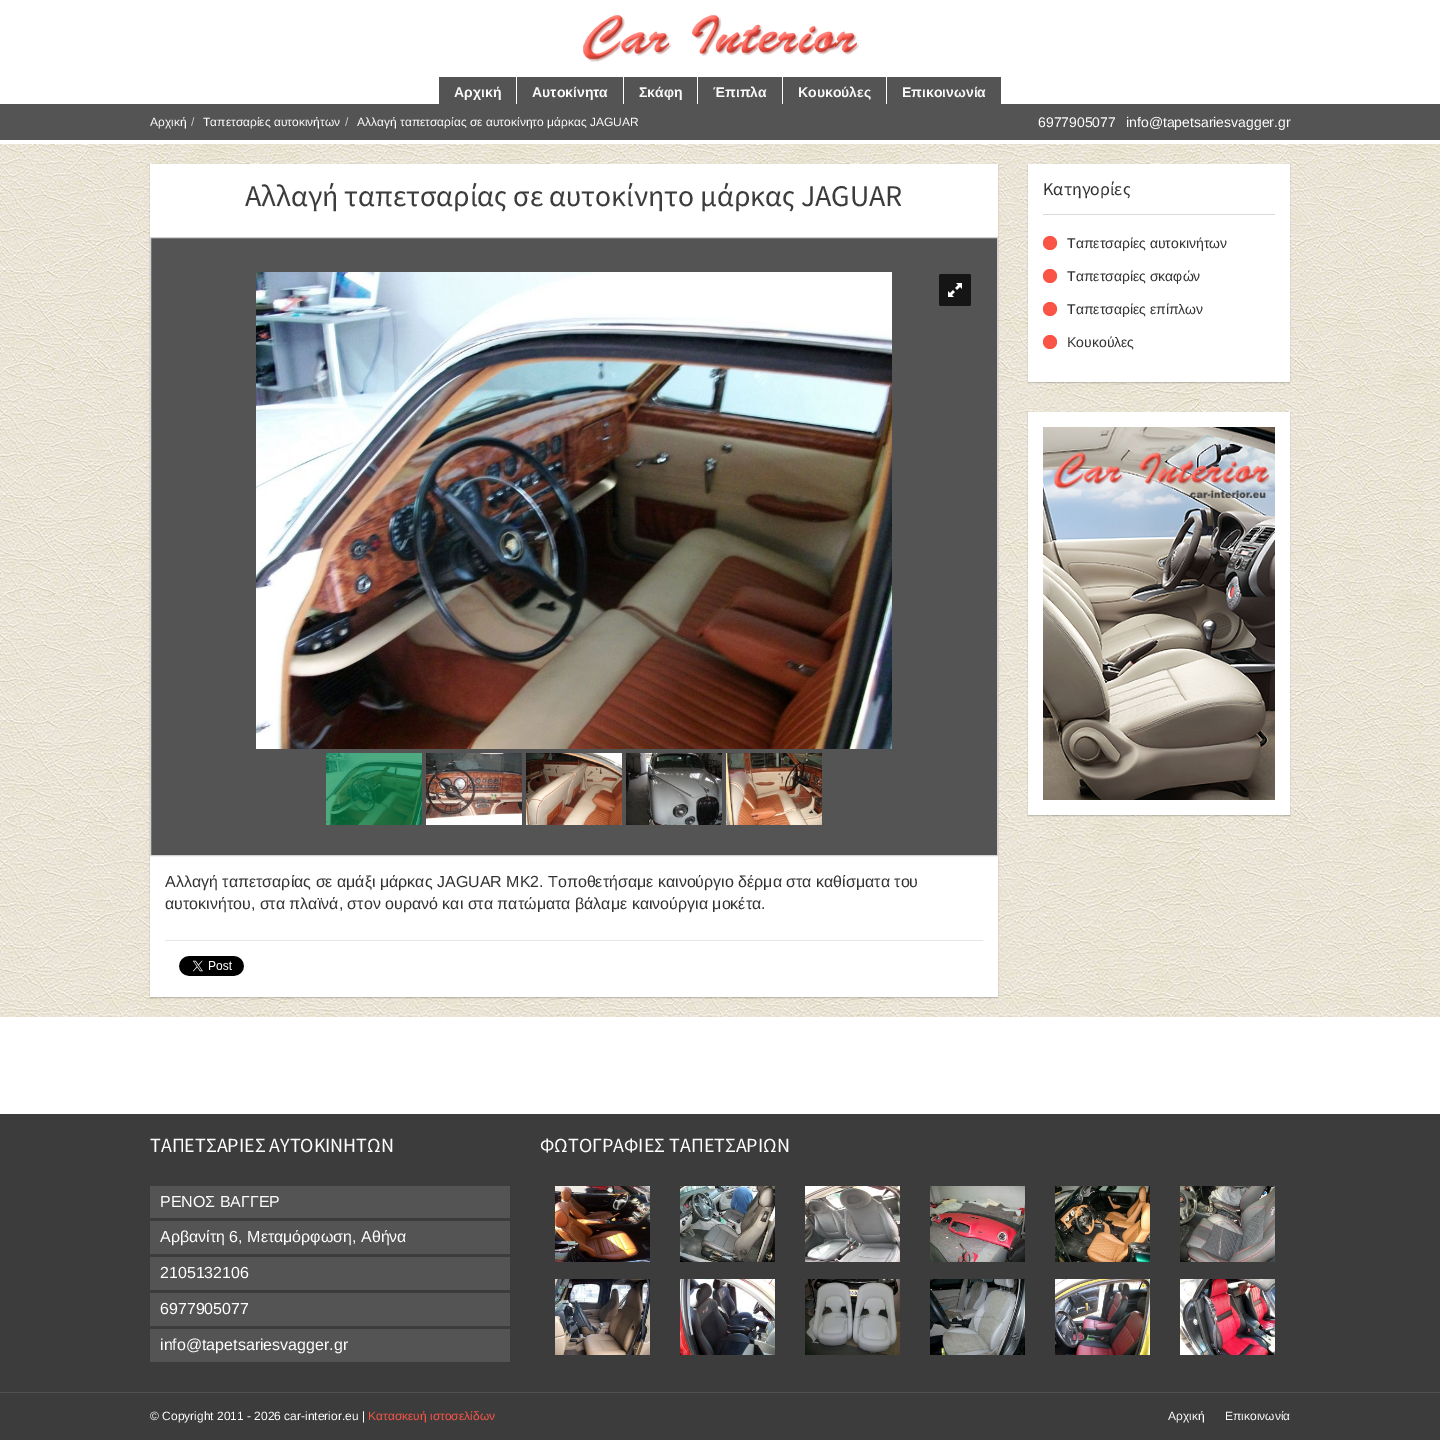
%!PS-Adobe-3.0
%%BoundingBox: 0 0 1440 1440
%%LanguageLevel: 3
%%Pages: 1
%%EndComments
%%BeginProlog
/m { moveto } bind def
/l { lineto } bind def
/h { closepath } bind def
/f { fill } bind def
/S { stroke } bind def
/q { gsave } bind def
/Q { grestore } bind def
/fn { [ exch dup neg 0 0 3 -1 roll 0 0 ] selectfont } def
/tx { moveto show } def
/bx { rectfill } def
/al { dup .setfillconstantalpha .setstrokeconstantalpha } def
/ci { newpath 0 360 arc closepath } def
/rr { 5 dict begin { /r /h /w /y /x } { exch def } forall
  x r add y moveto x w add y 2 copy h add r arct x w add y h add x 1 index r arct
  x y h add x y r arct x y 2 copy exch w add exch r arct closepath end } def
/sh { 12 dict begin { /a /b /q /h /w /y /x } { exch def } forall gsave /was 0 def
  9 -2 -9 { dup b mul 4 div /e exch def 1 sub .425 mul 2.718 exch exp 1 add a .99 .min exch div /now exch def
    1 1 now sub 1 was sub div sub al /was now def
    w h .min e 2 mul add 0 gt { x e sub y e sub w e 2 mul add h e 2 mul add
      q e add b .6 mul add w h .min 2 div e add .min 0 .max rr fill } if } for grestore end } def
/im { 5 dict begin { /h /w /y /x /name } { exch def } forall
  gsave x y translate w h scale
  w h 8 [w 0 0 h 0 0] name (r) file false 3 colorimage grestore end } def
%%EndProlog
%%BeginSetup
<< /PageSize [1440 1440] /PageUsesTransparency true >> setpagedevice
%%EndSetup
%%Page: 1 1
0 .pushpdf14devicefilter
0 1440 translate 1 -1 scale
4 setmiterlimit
1 setgray
0 0 1440 1440 bx
(image0.raw) 583 15 276 47 im
0.329 setgray
439 77 77 27 bx
/LiberationSans-Bold 14 fn
0.976 setgray
(Αρχική) 454 97 tx
0.329 setgray
517 77 106 27 bx
0.976 setgray
(Αυτοκίνητα) 532 97 tx
0.329 setgray
624 77 73 27 bx
0.976 setgray
(Σκάφη) 639 97 tx
0.329 setgray
698 77 84 27 bx
0.976 setgray
(Έπιπλα) 713 97 tx
0.329 setgray
783 77 103 27 bx
0.976 setgray
(Κουκούλες) 798 97 tx
0.329 setgray
887 77 114 27 bx
0.976 setgray
(Επικοινωνία) 902 97 tx
0.329 setgray
0 104 1440 36 bx
/LiberationSans-Regular 12 fn
1 setgray
(Αρχική) 150 126 tx
0.8 setgray
(/) 191 126 tx
1 setgray
(Ταπετσαρίες αυτοκινήτων) 203 126 tx
0.8 setgray
(/) 345 126 tx
1 setgray
(Αλλαγή ταπετσαρίας σε αυτοκίνητο μάρκας JAGUAR) 357 126 tx
/LiberationSans-Regular 14 fn
(6977905077) 1038 127 tx
(info@tapetsariesvagger.gr) 1126 127 tx
(image1.raw) 0 144 1440 873 im
0 setgray
150 165 848 833 0 0.5 0.2 sh
1 setgray
150 164 848 833 bx
/SourceSansPro-Regular 30 fn
0.235 setgray
(Αλλαγή ταπετσαρίας σε αυτοκίνητο μάρκας JAGUAR) 245 206 tx
0.329 setgray
150.5 237.5 m 997.5 237.5 l 997.5 855.5 l 150.5 855.5 l h q f Q
0.824 setgray
S
(image2.raw) 256 272 636 477 im
0.082 setgray
939 274 32 32 2 rr f
(image3.raw) 948 283 14 14 im
0.008 0.529 0.29 setrgbcolor
326 753 96 72 bx
(image4.raw) 326 753 96 72 im
(image5.raw) 426 753 96 72 im
(image6.raw) 526 753 96 72 im
(image7.raw) 626 753 96 72 im
(image8.raw) 726 753 96 72 im
/LiberationSans-Regular 16 fn
0.2 setgray
(Αλλαγή ταπετσαρίας σε αμάξι μάρκας JAGUAR MK2. Τοποθετήσαμε καινούργιο δέρμα στα καθίσματα του) 165 887 tx
(αυτοκινήτου, στα πλαϊνά, στον ουρανό και στα πατώματα βάλαμε καινούργια μοκέτα.) 165 909 tx
0.902 setgray
165 940 818 1 bx
(image9.raw) 179 956 65 20 im
0 setgray
1028 165 262 218 0 0.5 0.2 sh
1 setgray
1028 164 262 218 bx
0.851 setgray
1043 214 232 1 bx
/SourceSansPro-Regular 18 fn
0.2 setgray
(Κατηγορίες) 1043 195 tx
0.976 0.329 0.275 setrgbcolor
1050 243 7 ci f
/LiberationSans-Regular 14 fn
0.2 setgray
(Ταπετσαρίες αυτοκινήτων) 1067 248 tx
0.976 0.329 0.275 setrgbcolor
1050 276 7 ci f
0.2 setgray
(Ταπετσαρίες σκαφών) 1067 281 tx
0.976 0.329 0.275 setrgbcolor
1050 309 7 ci f
0.2 setgray
(Ταπετσαρίες επίπλων) 1067 314 tx
0.976 0.329 0.275 setrgbcolor
1050 342 7 ci f
0.2 setgray
(Κουκούλες) 1067 347 tx
0 setgray
1028 413 262 403 0 0.5 0.2 sh
1 setgray
1028 412 262 403 bx
(image10.raw) 1043 427 232 373 im
0.235 setgray
0 1114 1440 326 bx
/SourceSansPro-Regular 20 fn
1 setgray
(ΤΑΠΕΤΣΑΡΙΕΣ ΑΥΤΟΚΙΝΗΤΩΝ) 150 1152 tx
0.329 setgray
150 1186 360 32 bx
/LiberationSans-Regular 16 fn
1 setgray
(ΡΕΝΟΣ ΒΑΓΓΕΡ) 160 1207 tx
0.329 setgray
150 1221 360 33 bx
1 setgray
(Αρβανίτη 6, Μεταμόρφωση, Αθήνα) 160 1242 tx
0.329 setgray
150 1257 360 33 bx
1 setgray
(2105132106) 160 1278 tx
0.329 setgray
150 1293 360 33 bx
1 setgray
(6977905077) 160 1314 tx
0.329 setgray
150 1329 360 33 bx
1 setgray
(info@tapetsariesvagger.gr) 160 1350 tx
/SourceSansPro-Regular 20 fn
(ΦΩΤΟΓΡΑΦΙΕΣ ΤΑΠΕΤΣΑΡΙΩΝ) 540 1152 tx
(image11.raw) 555 1186 95 76 im
(image12.raw) 680 1186 95 76 im
(image13.raw) 805 1186 95 76 im
(image14.raw) 930 1186 95 76 im
(image15.raw) 1055 1186 95 76 im
(image16.raw) 1180 1186 95 76 im
(image17.raw) 555 1279 95 76 im
(image18.raw) 680 1279 95 76 im
(image19.raw) 805 1279 95 76 im
(image20.raw) 930 1279 95 76 im
(image21.raw) 1055 1279 95 76 im
(image22.raw) 1180 1279 95 76 im
0.314 setgray
0 1392 1440 1 bx
/LiberationSans-Regular 12 fn
1 setgray
(© Copyright 2011 - 2026 car-interior.eu |) 150 1420 tx
0.976 0.329 0.275 setrgbcolor
(Κατασκευή ιστοσελίδων) 368 1420 tx
1 setgray
(Αρχική) 1168 1420 tx
(Επικοινωνία) 1225 1420 tx
.poppdf14devicefilter showpage
%%EOF
